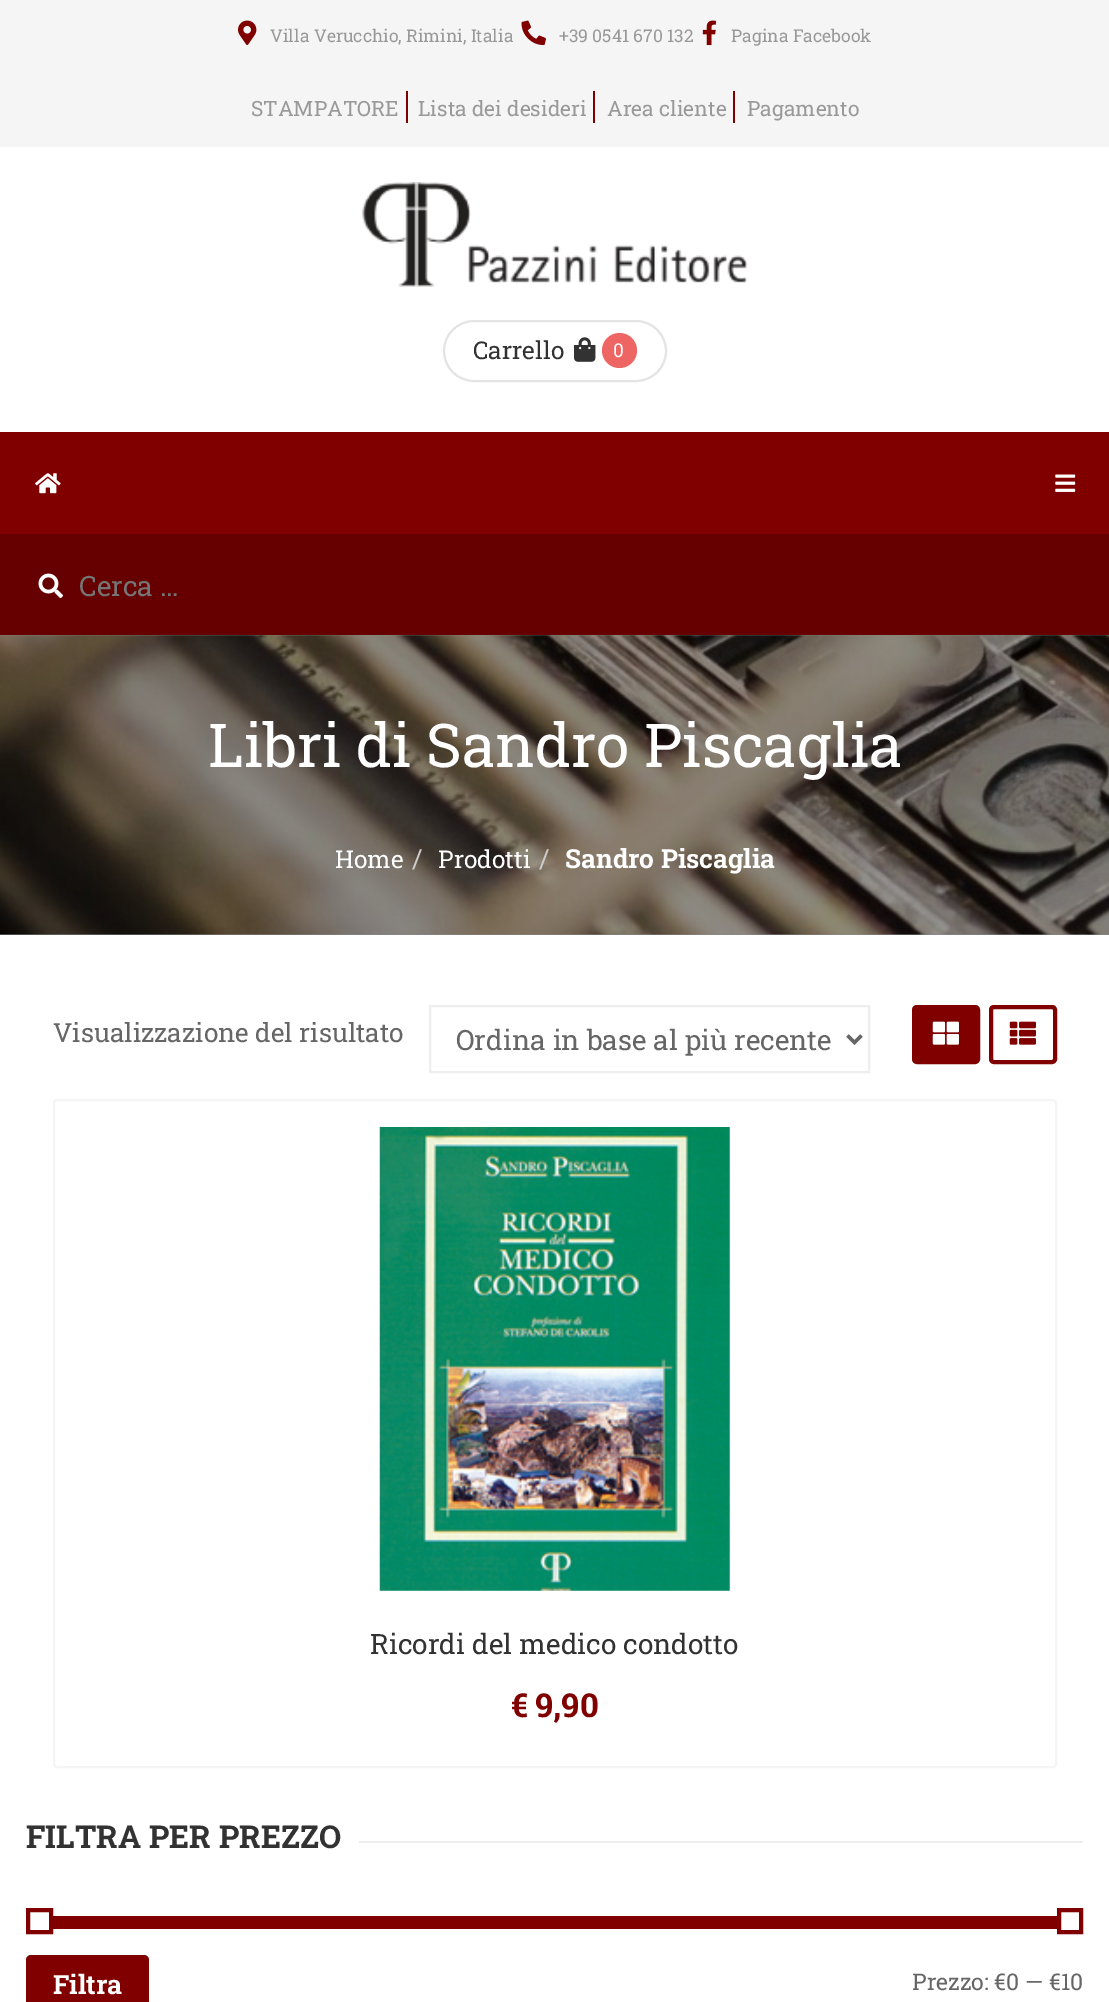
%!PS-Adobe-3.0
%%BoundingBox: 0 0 1109 2002
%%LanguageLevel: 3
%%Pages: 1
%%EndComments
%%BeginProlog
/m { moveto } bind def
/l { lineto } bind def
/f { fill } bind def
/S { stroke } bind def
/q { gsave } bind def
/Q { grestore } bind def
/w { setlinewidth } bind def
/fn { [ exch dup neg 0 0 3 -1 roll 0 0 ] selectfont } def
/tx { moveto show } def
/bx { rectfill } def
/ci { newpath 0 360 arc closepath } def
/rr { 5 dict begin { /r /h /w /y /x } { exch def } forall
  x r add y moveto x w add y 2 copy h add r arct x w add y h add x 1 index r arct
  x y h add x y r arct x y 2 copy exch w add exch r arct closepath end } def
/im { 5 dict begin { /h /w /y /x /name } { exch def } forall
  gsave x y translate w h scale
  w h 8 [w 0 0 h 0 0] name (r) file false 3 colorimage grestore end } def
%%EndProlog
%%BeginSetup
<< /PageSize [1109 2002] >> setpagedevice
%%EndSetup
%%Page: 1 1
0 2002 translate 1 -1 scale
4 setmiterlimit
1 setgray
0 0 1109 2002 bx
0.961 setgray
0 0 1109 147 bx
(image0.raw) 238 20 19 25 im
/RobotoSlab-Regular 17.5 fn
0.6 setgray
(Villa Verucchio, Rimini, Italia) 270 42 tx
(image1.raw) 521 20 25 26 im
(+39 0541 670 132) 559 42 tx
(image2.raw) 702 20 14 26 im
(Pagina Facebook) 731 42 tx
0.502 0 0 setrgbcolor
406 91 2 32 bx
/RobotoSlab-Regular 21 fn
0.6 setgray
(STAMPATORE) 251 116 tx
0.502 0 0 setrgbcolor
593 91 2 32 bx
0.6 setgray
(Lista dei desideri) 418 116 tx
0.502 0 0 setrgbcolor
733 91 2 32 bx
0.6 setgray
(Area cliente) 607 116 tx
(Pagamento) 747 116 tx
(image3.raw) 362 182 386 105 im
0.894 setgray
2 w
444 321 222 60 30 rr S
/RobotoSlab-Regular 24.5 fn
0.196 setgray
(Carrello) 473 359 tx
(image4.raw) 574 337 22 25 im
0.929 0.4 0.388 setrgbcolor
619.5 350.5 17.5 ci f
/RobotoSlab-Regular 19 fn
1 setgray
(0) 613 357 tx
0.502 0 0 setrgbcolor
0 432 1109 102 bx
(image5.raw) 35 473 26 21 im
(image6.raw) 1055 474 21 18 im
0.4 0 0 setrgbcolor
0 534 1109 101 bx
(image7.raw) 38 573 25 25 im
/RobotoSlab-Regular 28 fn
0.459 setgray
(Cerca …) 79 596 tx
0.537 setgray
0 635 1109 300 bx
(image8.raw) 0 635 1109 300 im
/RobotoSlab-Regular 60.4 fn
1 setgray
(Libri di Sandro Piscaglia) 208 767 tx
/RobotoSlab-Regular 24.5 fn
(Home) 335 868 tx
/RobotoSlab-Regular 26.25 fn
0.8 setgray
(/) 412 868 tx
/RobotoSlab-Regular 24.5 fn
1 setgray
(Prodotti) 438 868 tx
/RobotoSlab-Regular 26.25 fn
0.8 setgray
(/) 539 868 tx
/RobotoSlab-Bold 26.25 fn
1 setgray
(Sandro Piscaglia) 565 868 tx
/RobotoSlab-Regular 26.25 fn
0.4 setgray
(Visualizzazione del risultato) 53 1042 tx
0.933 setgray
430 1006 439 66 rectstroke
0.4 setgray
3.5 w
847.5 1035.5 m 854.5 1042.5 l 861.5 1035.5 l S
/RobotoSlab-Regular 28 fn
(Ordina in base al più recente) 456 1050 tx
0.502 0 0 setrgbcolor
914 1007 64 55 3 rr q f Q
4 w
S
(image9.raw) 932 1021 27 24 im
991 1007 64 55 3 rr S
(image10.raw) 1009 1021 27 24 im
0.961 setgray
2 w
54 1100 1002 667 3 rr S
(image11.raw) 379 1127 351 464 im
0.196 setgray
(Ricordi del medico condotto) 370 1654 tx
/RobotoSlab-Bold 33 fn
0.502 0 0 setrgbcolor
(€) 511 1717 tx
(9,90) 535 1717 tx
/RobotoSlab-Bold 31.5 fn
0.196 setgray
(FILTRA PER PREZZO) 26 1848 tx
0.933 setgray
359 1841 724 2 bx
0.502 0 0 setrgbcolor
4 w
28 1910 23 22 rectstroke
53 1916 1004 13 bx
1059 1910 22 22 rectstroke
26 1955 123 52 5 rr f
/RobotoSlab-Bold 26.5 fn
1 setgray
(Filtra) 53 1994 tx
/RobotoSlab-Regular 23 fn
0.4 setgray
(Prezzo: €0 — €10) 912 1990 tx
showpage
%%EOF
